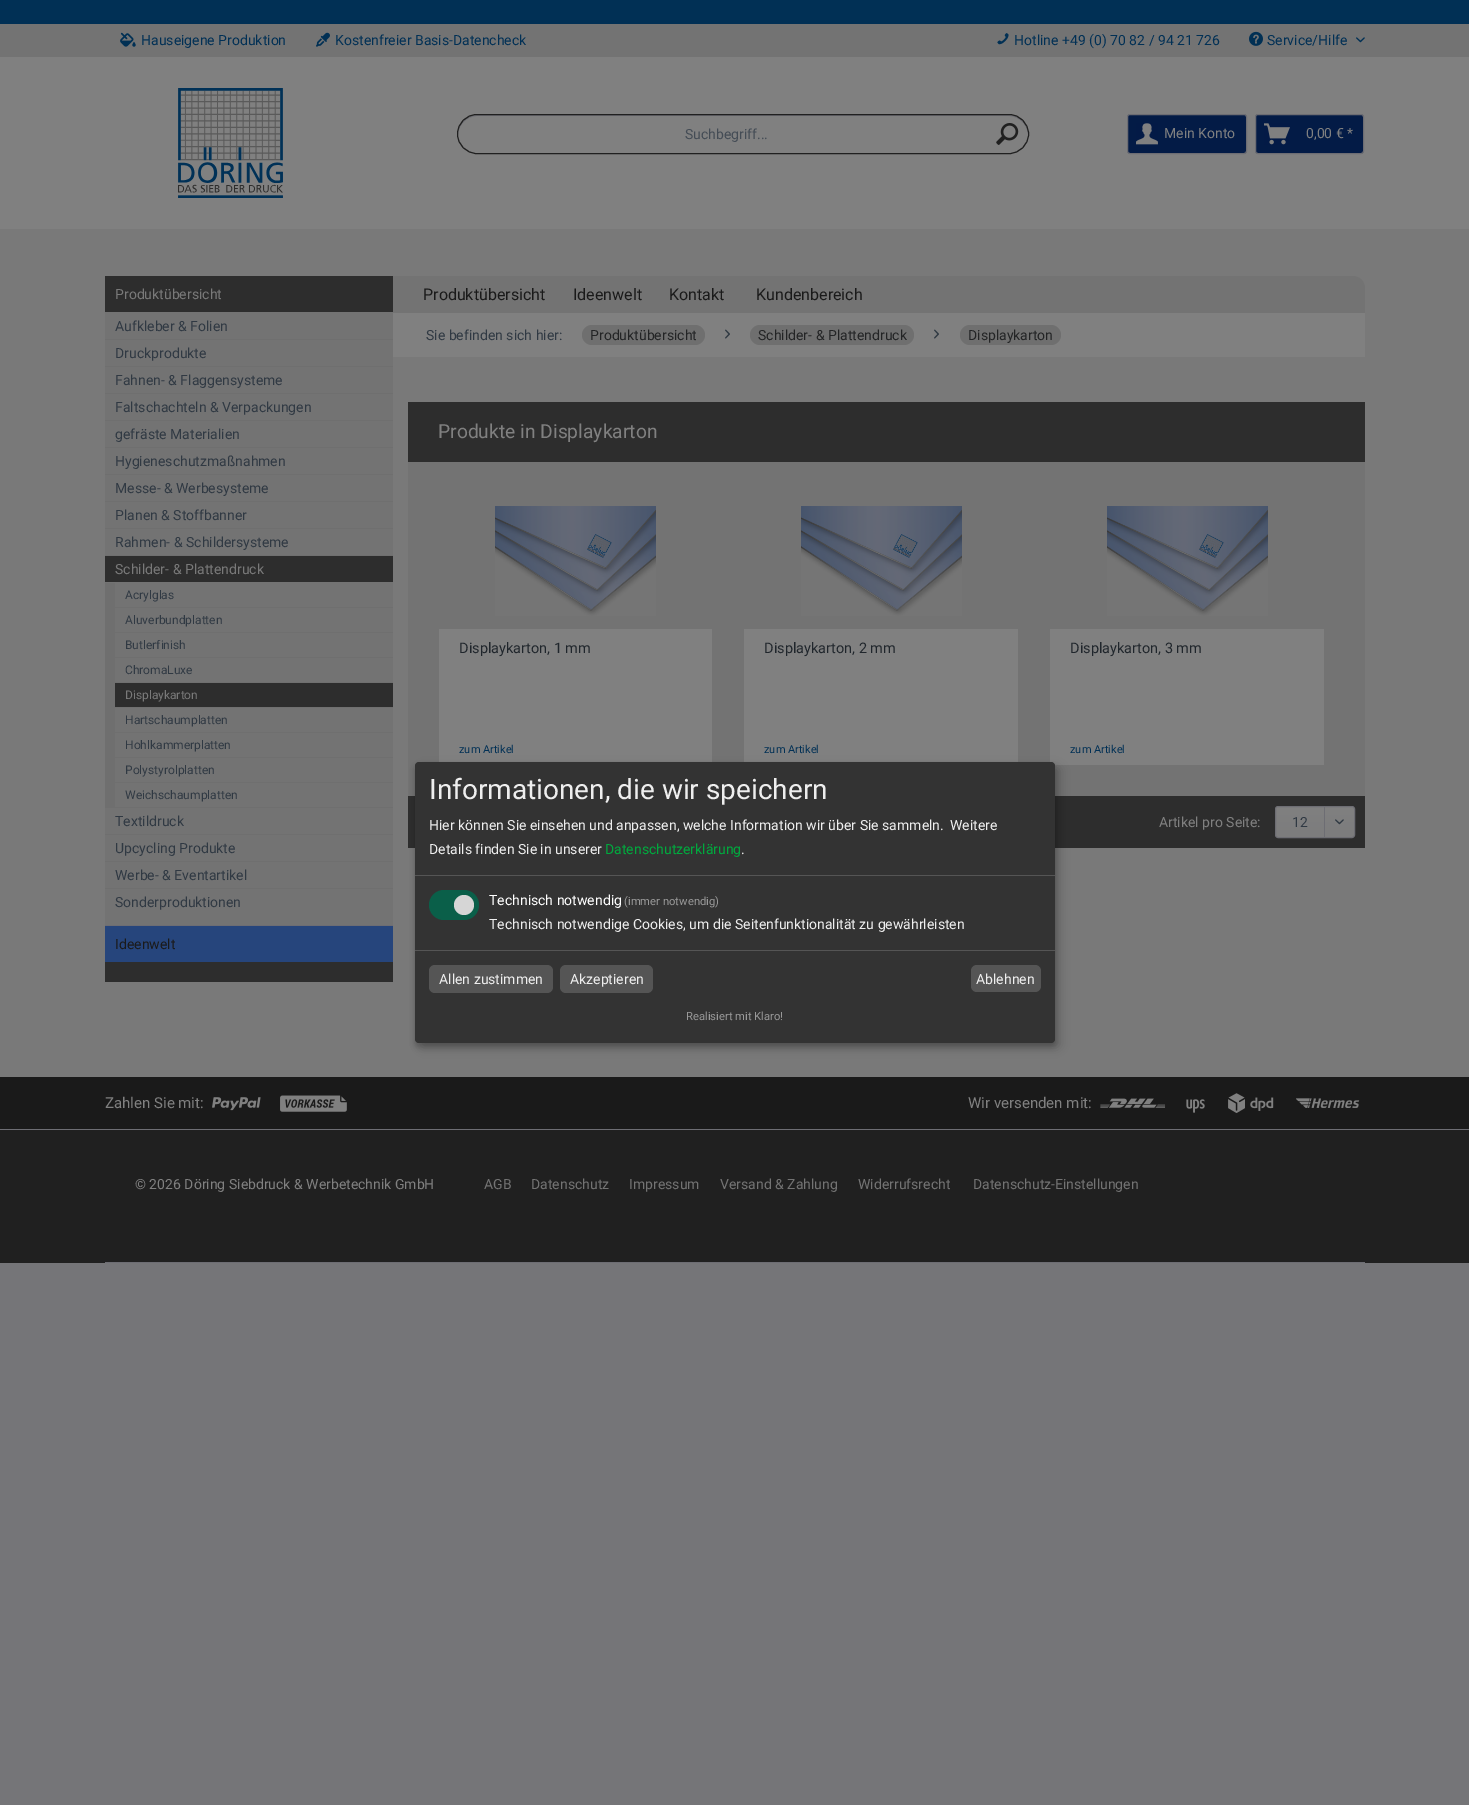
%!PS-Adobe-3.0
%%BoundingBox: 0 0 1469 1805
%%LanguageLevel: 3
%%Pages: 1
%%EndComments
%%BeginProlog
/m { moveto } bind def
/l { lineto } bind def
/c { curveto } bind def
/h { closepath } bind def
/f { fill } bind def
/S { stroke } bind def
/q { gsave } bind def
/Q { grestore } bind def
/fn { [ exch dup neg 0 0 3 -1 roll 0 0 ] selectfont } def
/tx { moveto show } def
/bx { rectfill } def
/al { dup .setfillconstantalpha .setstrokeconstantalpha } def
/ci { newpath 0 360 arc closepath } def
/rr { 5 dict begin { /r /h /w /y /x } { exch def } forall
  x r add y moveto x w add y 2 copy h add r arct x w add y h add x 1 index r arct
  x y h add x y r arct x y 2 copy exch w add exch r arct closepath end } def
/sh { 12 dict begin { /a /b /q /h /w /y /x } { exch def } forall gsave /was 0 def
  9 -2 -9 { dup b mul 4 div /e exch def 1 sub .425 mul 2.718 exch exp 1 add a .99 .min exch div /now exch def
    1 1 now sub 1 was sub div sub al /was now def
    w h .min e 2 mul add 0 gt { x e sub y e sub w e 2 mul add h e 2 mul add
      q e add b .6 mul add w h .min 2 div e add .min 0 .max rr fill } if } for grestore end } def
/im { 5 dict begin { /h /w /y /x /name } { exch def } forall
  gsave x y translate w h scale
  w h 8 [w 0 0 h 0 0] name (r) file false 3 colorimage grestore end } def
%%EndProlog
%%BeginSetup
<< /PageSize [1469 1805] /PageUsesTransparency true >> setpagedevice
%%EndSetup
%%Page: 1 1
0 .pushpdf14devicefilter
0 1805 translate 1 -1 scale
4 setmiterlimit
0.459 0.459 0.471 setrgbcolor
0 0 1469 1805 bx
0.475 setgray
0 229 1469 848 bx
0.502 setgray
0 57 1469 172 bx
0.004 0.188 0.333 setrgbcolor
0 0 1469 24 bx
0.451 setgray
0 24 1469 33 bx
(image0.raw) 120 32 16 15 im
/Roboto-Regular 14 fn
0.004 0.188 0.333 setrgbcolor
(Hauseigene Produktion) 141 45 tx
(image1.raw) 316 32 14 15 im
(Kostenfreier Basis-Datencheck) 335 45 tx
(image2.raw) 997 33 12 12 im
(Hotline +49 \(0\) 70 82 / 94 21 726) 1014 45 tx
(image3.raw) 1249 31 14 15 im
(Service/Hilfe) 1267 45 tx
(image4.raw) 1356 37 9 6 im
(image5.raw) 178 88 105 110 im
0.427 0.427 0.451 setrgbcolor
477 116 m 1009 116 l 1019 116 1028 125 1028 135 c 1028 134 l 1028 124 1019 115 1009 115 c 477 115 l 467 115 458 124 458 134 c 458 135 l 458 125 467 116 477 116 c h f
0.125 setgray
457.5 114.5 571 39 19.5 rr S
0.267 0.298 0.333 setrgbcolor
(Suchbegriff...) 685 139 tx
(image6.raw) 996 123 23 22 im
0.012 0.106 0.275 setrgbcolor
1127.5 114.5 119 39 2.5 rr q f Q
0.427 0.427 0.451 setrgbcolor
S
(image7.raw) 1136 123 22 22 im
0.502 setgray
(Mein Konto) 1164 138 tx
0.012 0.106 0.275 setrgbcolor
1255.5 114.5 108 39 2.5 rr q f Q
0.427 0.427 0.451 setrgbcolor
S
(image8.raw) 1264 123 26 22 im
0.502 setgray
(0,00 € *) 1306 138 tx
0.176 setgray
105 962 288 20 bx
0.451 setgray
105 312 288 613 bx
0.427 0.427 0.451 setrgbcolor
105 925 288 1 bx
0.176 setgray
105 276 288 36 bx
0.475 setgray
(Produktübersicht) 115 299 tx
0.435 setgray
105 339 288 550 bx
0.188 0.224 0.263 setrgbcolor
(Aufkleber & Folien) 115 331 tx
0.451 setgray
105 340 288 26 bx
0.188 0.224 0.263 setrgbcolor
(Druckprodukte) 115 358 tx
0.451 setgray
105 367 288 26 bx
0.188 0.224 0.263 setrgbcolor
(Fahnen- & Flaggensysteme) 115 385 tx
0.451 setgray
105 394 288 26 bx
0.188 0.224 0.263 setrgbcolor
(Faltschachteln & Verpackungen) 115 412 tx
0.451 setgray
105 421 288 26 bx
0.188 0.224 0.263 setrgbcolor
(gefräste Materialien) 115 439 tx
0.451 setgray
105 448 288 26 bx
0.188 0.224 0.263 setrgbcolor
(Hygieneschutzmaßnahmen) 115 466 tx
0.451 setgray
105 475 288 26 bx
0.188 0.224 0.263 setrgbcolor
(Messe- & Werbesysteme) 115 493 tx
0.451 setgray
105 502 288 26 bx
0.188 0.224 0.263 setrgbcolor
(Planen & Stoffbanner) 115 520 tx
0.451 setgray
105 529 288 26 bx
0.188 0.224 0.263 setrgbcolor
(Rahmen- & Schildersysteme) 115 547 tx
0.451 setgray
105 582 288 1 bx
0.176 setgray
105 556 288 26 bx
0.475 setgray
(Schilder- & Plattendruck) 115 574 tx
0.451 setgray
115 583 278 24 bx
/Roboto-Regular 12 fn
0.188 0.224 0.263 setrgbcolor
(Acrylglas) 125 599 tx
0.451 setgray
115 608 278 24 bx
0.188 0.224 0.263 setrgbcolor
(Aluverbundplatten) 125 624 tx
0.451 setgray
115 633 278 24 bx
0.188 0.224 0.263 setrgbcolor
(Butlerfinish) 125 649 tx
0.451 setgray
115 658 278 24 bx
0.188 0.224 0.263 setrgbcolor
(ChromaLuxe) 125 674 tx
0.176 setgray
115 683 278 24 bx
0.475 setgray
(Displaykarton) 125 699 tx
0.451 setgray
115 708 278 24 bx
0.188 0.224 0.263 setrgbcolor
(Hartschaumplatten) 125 724 tx
0.451 setgray
115 733 278 24 bx
0.188 0.224 0.263 setrgbcolor
(Hohlkammerplatten) 125 749 tx
0.451 setgray
115 758 278 24 bx
0.188 0.224 0.263 setrgbcolor
(Polystyrolplatten) 125 774 tx
0.451 setgray
115 783 278 24 bx
0.188 0.224 0.263 setrgbcolor
(Weichschaumplatten) 125 799 tx
0.451 setgray
105 808 288 26 bx
/Roboto-Regular 14 fn
0.188 0.224 0.263 setrgbcolor
(Textildruck) 115 826 tx
0.451 setgray
105 835 288 26 bx
0.188 0.224 0.263 setrgbcolor
(Upcycling Produkte) 115 853 tx
0.451 setgray
105 862 288 26 bx
0.188 0.224 0.263 setrgbcolor
(Werbe- & Eventartikel) 115 880 tx
(Sonderproduktionen) 115 907 tx
0.149 0.271 0.486 setrgbcolor
105 926 288 36 bx
0.102 setgray
(Ideenwelt) 115 949 tx
0.451 setgray
393 276 m 1353 276 l 1359.5 276 1365 281.5 1365 288 c 1365 313 l 393 313 l h f
/Roboto-Regular 16 fn
0.102 setgray
(Produktübersicht) 423 300 tx
(Ideenwelt) 573 300 tx
(Kontakt) 669 300 tx
(Kundenbereich) 756 300 tx
0.502 setgray
393 313 972 44 bx
/Roboto-Regular 14 fn
0.188 0.224 0.263 setrgbcolor
(Sie befinden sich hier:) 426 340 tx
0.435 setgray
582 325 123 20 10 rr f
0.137 0.141 0.145 setrgbcolor
(Produktübersicht) 590 340 tx
(image9.raw) 725 329 5 10 im
0.435 setgray
750 325 164 20 10 rr f
0.137 0.141 0.145 setrgbcolor
(Schilder- & Plattendruck) 758 340 tx
(image9.raw) 934 329 5 10 im
0.435 setgray
960 325 101 20 10 rr f
0.137 0.141 0.145 setrgbcolor
(Displaykarton) 968 340 tx
0.176 setgray
408 402 957 60 bx
/Roboto-Regular 19.25 fn
0.502 setgray
(Produkte in Displaykarton) 438 438 tx
0.451 setgray
408 462 957 334 bx
0.502 setgray
439 629 273 133 bx
(image10.raw) 495 506 161 110 im
/Roboto-Regular 14.5 fn
0.125 0.149 0.173 setrgbcolor
(Displaykarton, 1 mm) 459 653 tx
/Roboto-Regular 11 fn
0.004 0.188 0.333 setrgbcolor
(zum Artikel) 459 753 tx
0.502 setgray
744 629 274 133 bx
(image10.raw) 801 506 161 110 im
/Roboto-Regular 14.5 fn
0.125 0.149 0.173 setrgbcolor
(Displaykarton, 2 mm) 764 653 tx
/Roboto-Regular 11 fn
0.004 0.188 0.333 setrgbcolor
(zum Artikel) 764 753 tx
0.502 setgray
1050 629 274 136 bx
(image10.raw) 1107 506 161 110 im
/Roboto-Regular 14.5 fn
0.125 0.149 0.173 setrgbcolor
(Displaykarton, 3 mm) 1070 653 tx
/Roboto-Regular 11 fn
0.004 0.188 0.333 setrgbcolor
(zum Artikel) 1070 753 tx
0.176 setgray
408 796 957 52 bx
/Roboto-Regular 14 fn
0.502 setgray
(Artikel pro Seite:) 1159 827 tx
q 1276 807 78 30 2 rr clip newpath
<< /ShadingType 2 /ColorSpace /DeviceRGB /Coords [1315 807 1315 837] /Extend [true true] /Function << /FunctionType 2 /Domain [0 1] /C0 [0.502 0.502 0.502] /C1 [0.486 0.486 0.49] /N 1 >> >> shfill Q
0.427 0.427 0.451 setrgbcolor
1275.5 806.5 79 31 2.5 rr S
0.188 0.224 0.263 setrgbcolor
(12) 1292 827 tx
0.427 0.427 0.451 setrgbcolor
1324 807 1 31 bx
(image11.raw) 1335 819 9 6 im
0.102 setgray
0 1077 1469 52 bx
/Roboto-Regular 15 fn
0.502 setgray
(Zahlen Sie mit:) 105 1108 tx
(image12.raw) 212 1097 49 14 im
(image13.raw) 280 1095 67 17 im
(Wir versenden mit:) 968 1108 tx
(image14.raw) 1100 1098 66 10 im
(image15.raw) 1186 1099 19 14 im
(image16.raw) 1228 1093 46 20 im
(image17.raw) 1296 1098 64 10 im
0.125 setgray
0 1130 1469 133 bx
0.427 0.427 0.451 setrgbcolor
0 1129 1469 1 bx
105 1262 1260 1 bx
/Roboto-Regular 14 fn
0.502 setgray
(© 2026 Döring Siebdruck & Werbetechnik GmbH) 135 1189 tx
0.451 setgray
(AGB) 484 1189 tx
(Datenschutz) 531 1189 tx
(Impressum) 629 1189 tx
(Versand & Zahlung) 720 1189 tx
(Widerrufsrecht) 858 1189 tx
(Datenschutz-Einstellungen) 973 1189 tx
0 setgray
420 767 640 281 4 5 0.19 sh
415 766 640 281 4 3 0.2 sh
0.2 setgray
415 762 640 281 4 rr f
0.333 setgray
415 875 640 1 bx
/Roboto-Regular 28 fn
0.933 setgray
(Informationen, die wir speichern) 429 799 tx
/Roboto-Regular 14 fn
(Hier können Sie einsehen und anpassen, welche Information wir über Sie sammeln.) 429 830 tx
(Weitere) 950 830 tx
(Details finden Sie in unserer) 429 854 tx
0 0.667 0.243 setrgbcolor
(Datenschutzerklärung) 605 854 tx
0.933 setgray
(.) 741 854 tx
0.039 0.373 0.286 setrgbcolor
429 890 50 30 15 rr f
0.839 setgray
464 905 10 ci f
1 setgray
(Technisch notwendig) 489 905 tx
/Roboto-Regular 11.25 fn
0.6 setgray
(\(immer notwendig\)) 624 905 tx
/Roboto-Regular 14 fn
0.933 setgray
(Technisch notwendige Cookies, um die Seitenfunktionalität zu gewährleisten) 489 929 tx
0.333 setgray
415 950 640 1 bx
429 965 124 28 6 rr f
0.933 setgray
(Allen zustimmen) 439 984 tx
0.333 setgray
560 965 93 28 6 rr f
0.933 setgray
(Akzeptieren) 570 984 tx
0.333 setgray
971 965 70 27 6 rr f
0.933 setgray
(Ablehnen) 976 984 tx
/Roboto-Regular 11.25 fn
0.6 setgray
(Realisiert mit Klaro!) 686 1020 tx
.poppdf14devicefilter showpage
%%EOF
